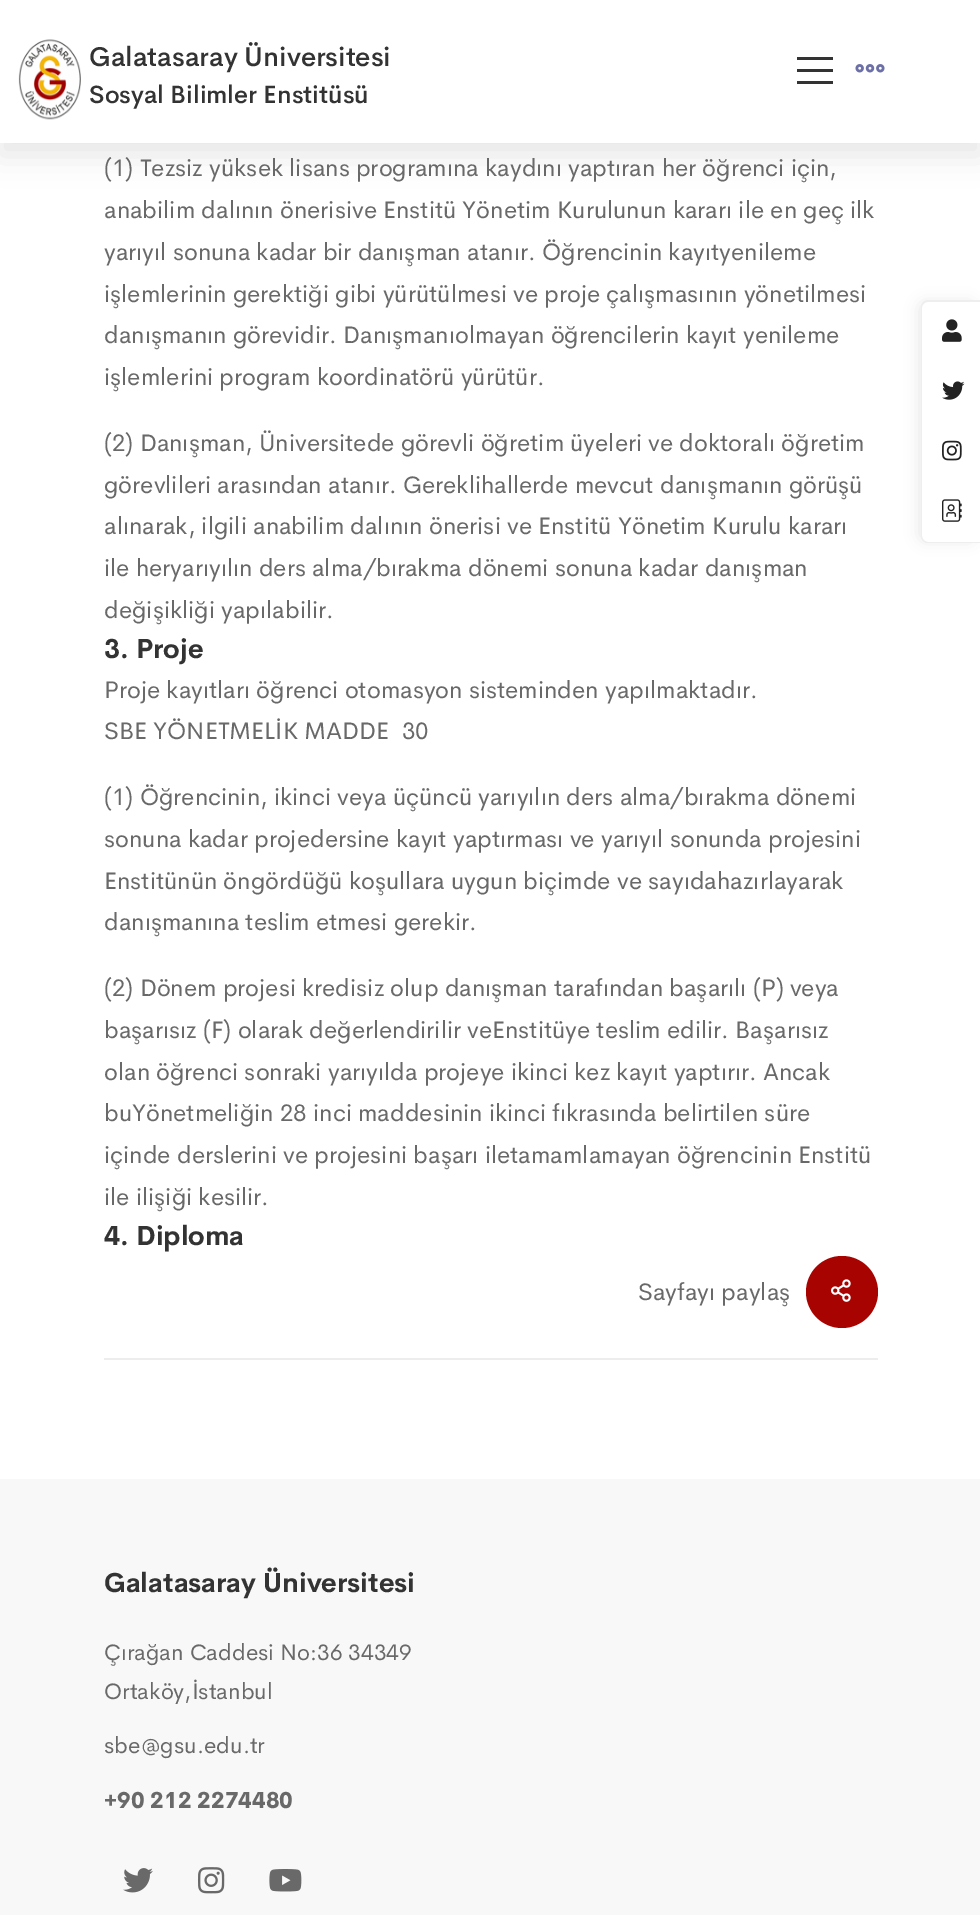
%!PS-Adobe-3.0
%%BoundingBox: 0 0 980 1915
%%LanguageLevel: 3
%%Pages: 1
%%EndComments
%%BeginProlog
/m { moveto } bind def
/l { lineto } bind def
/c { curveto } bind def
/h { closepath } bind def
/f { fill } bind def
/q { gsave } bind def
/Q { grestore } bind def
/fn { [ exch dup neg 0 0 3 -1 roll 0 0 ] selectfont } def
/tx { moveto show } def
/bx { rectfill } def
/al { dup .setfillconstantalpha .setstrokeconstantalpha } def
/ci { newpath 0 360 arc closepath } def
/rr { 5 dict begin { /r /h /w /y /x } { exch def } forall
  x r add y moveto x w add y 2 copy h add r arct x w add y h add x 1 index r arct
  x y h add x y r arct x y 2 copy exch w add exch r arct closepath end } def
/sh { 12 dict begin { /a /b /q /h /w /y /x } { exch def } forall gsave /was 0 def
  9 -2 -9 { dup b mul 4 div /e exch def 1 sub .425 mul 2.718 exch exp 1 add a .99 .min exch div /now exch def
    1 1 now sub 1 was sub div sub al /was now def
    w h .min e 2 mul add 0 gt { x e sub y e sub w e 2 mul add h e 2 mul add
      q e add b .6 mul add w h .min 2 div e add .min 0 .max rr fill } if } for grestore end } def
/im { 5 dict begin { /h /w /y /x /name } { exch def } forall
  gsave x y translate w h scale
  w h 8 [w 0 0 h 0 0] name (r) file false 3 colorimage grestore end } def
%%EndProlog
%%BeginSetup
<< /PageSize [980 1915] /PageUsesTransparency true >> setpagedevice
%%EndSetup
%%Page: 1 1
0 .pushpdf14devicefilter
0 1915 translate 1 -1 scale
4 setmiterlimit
1 setgray
0 0 980 1915 bx
0 setgray
0 12 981 143 0 15 0.1 sh
1 setgray
0 0 980 143 bx
(image0.raw) 18 39 63 81 im
/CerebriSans-Medium 27 fn
0.2 setgray
(Galatasaray Üniversitesi) 89 66 tx
/CerebriSans-Medium 24.75 fn
(Sosyal Bilimler Enstitüsü) 89 103 tx
797 69 36 3 bx
797 57 36 3 bx
797 81 36 3 bx
(image1.raw) 855 64 30 9 im
/CerebriSans-Regular 24 fn
0.412 setgray
(\(1\) Tezsiz yüksek lisans programına kaydını yaptıran her öğrenci için,) 104 176 tx
(anabilim dalının önerisive Enstitü Yönetim Kurulunun kararı ile en geç ilk) 104 218 tx
(yarıyıl sonuna kadar bir danışman atanır. Öğrencinin kayıtyenileme) 104 260 tx
(işlemlerinin gerektiği gibi yürütülmesi ve proje çalışmasının yönetilmesi) 104 302 tx
(danışmanın görevidir. Danışmanıolmayan öğrencilerin kayıt yenileme) 104 343 tx
(işlemlerini program koordinatörü yürütür.) 104 385 tx
(\(2\) Danışman, Üniversitede görevli öğretim üyeleri ve doktoralı öğretim) 104 451 tx
(görevlileri arasından atanır. Gereklihallerde mevcut danışmanın görüşü) 104 493 tx
(alınarak, ilgili anabilim dalının önerisi ve Enstitü Yönetim Kurulu kararı) 104 534 tx
(ile heryarıyılın ders alma/bırakma dönemi sonuna kadar danışman) 104 576 tx
(değişikliği yapılabilir.) 104 618 tx
/CerebriSans-Bold 27 fn
0.2 setgray
(3. Proje) 104 658 tx
/CerebriSans-Regular 24 fn
0.412 setgray
(Proje kayıtları öğrenci otomasyon sisteminden yapılmaktadır.) 104 698 tx
(SBE YÖNETMELİK MADDE  30) 104 739 tx
(\(1\) Öğrencinin, ikinci veya üçüncü yarıyılın ders alma/bırakma dönemi) 104 805 tx
(sonuna kadar projedersine kayıt yaptırması ve yarıyıl sonunda projesini) 104 847 tx
(Enstitünün öngördüğü koşullara uygun biçimde ve sayıdahazırlayarak) 104 889 tx
(danışmanına teslim etmesi gerekir.) 104 930 tx
(\(2\) Dönem projesi kredisiz olup danışman tarafından başarılı \(P\) veya) 104 996 tx
(başarısız \(F\) olarak değerlendirilir veEnstitüye teslim edilir. Başarısız) 104 1038 tx
(olan öğrenci sonraki yarıyılda projeye ikinci kez kayıt yaptırır. Ancak) 104 1080 tx
(buYönetmeliğin 28 inci maddesinin ikinci fıkrasında belirtilen süre) 104 1121 tx
(içinde derslerini ve projesini başarı iletamamlamayan öğrencinin Enstitü) 104 1163 tx
(ile ilişiği kesilir.) 104 1205 tx
/CerebriSans-Bold 27 fn
0.2 setgray
(4. Diploma) 104 1245 tx
0.929 setgray
104 1358 774 2 bx
/CerebriSans-Regular 24 fn
0.412 setgray
(Sayfayı paylaş) 638 1300 tx
0.655 0.012 0.004 setrgbcolor
842 1292 36 ci f
(image2.raw) 831 1279 20 23 im
0.973 setgray
0 1479 980 436 bx
/CerebriSans-Bold 27 fn
0.2 setgray
(Galatasaray Üniversitesi) 104 1592 tx
/CerebriSans-Regular 22.5 fn
0.412 setgray
(Çırağan Caddesi No:36 34349) 104 1660 tx
(Ortaköy,İstanbul) 104 1699 tx
(sbe@gsu.edu.tr) 104 1753 tx
/CerebriSans-ExtraBold 22.5 fn
(+90 212 2274480) 104 1808 tx
(image3.raw) 123 1868 30 25 im
(image4.raw) 198 1867 27 27 im
(image5.raw) 269 1869 33 23 im
q
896 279 m 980 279 l 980 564 l 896 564 l h 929 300 m 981 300 l 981 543 l 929 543 l 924.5 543 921 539.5 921 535 c 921 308 l 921 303.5 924.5 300 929 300 c h eoclip newpath
0 setgray
920 303 54 237 5 7.5 0.1 sh
Q
0.933 setgray
928 300 m 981 300 l 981 543 l 928 543 l 924 543 921 540 921 536 c 921 308 l 921 303 924 300 928 300 c h 928 302 m 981 302 l 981 542 l 928 542 l 925 542 922 539 922 536 c 922 308 l 922 304 925 302 928 302 c h eofill
(image6.raw) 942 319 20 23 im
(image7.raw) 942 381 23 19 im
(image8.raw) 942 440 20 21 im
(image9.raw) 942 499 20 23 im
.poppdf14devicefilter showpage
%%EOF
